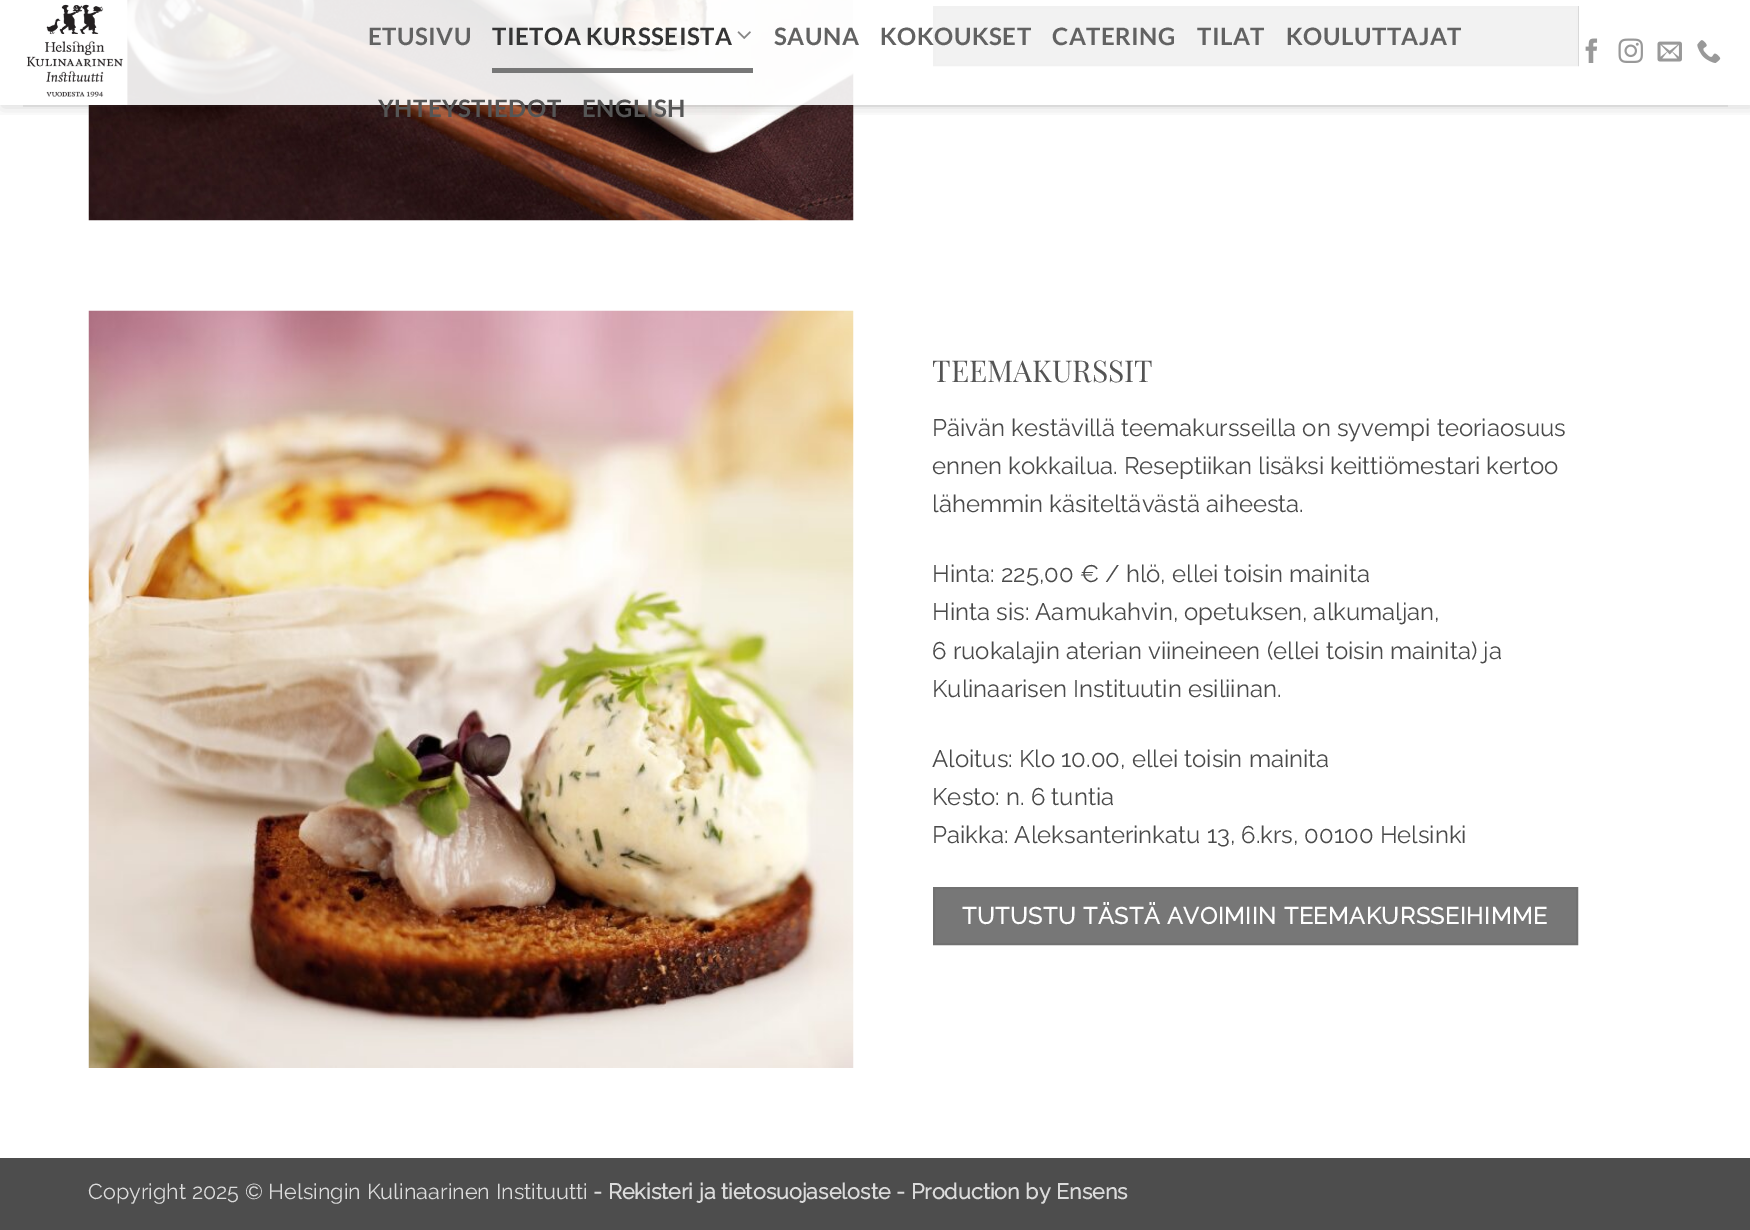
%!PS-Adobe-3.0
%%BoundingBox: 0 0 1750 1230
%%LanguageLevel: 3
%%Pages: 1
%%EndComments
%%BeginProlog
/m { moveto } bind def
/l { lineto } bind def
/h { closepath } bind def
/f { fill } bind def
/S { stroke } bind def
/q { gsave } bind def
/Q { grestore } bind def
/w { setlinewidth } bind def
/fn { [ exch dup neg 0 0 3 -1 roll 0 0 ] selectfont } def
/tx { moveto show } def
/bx { rectfill } def
/al { dup .setfillconstantalpha .setstrokeconstantalpha } def
/rr { 5 dict begin { /r /h /w /y /x } { exch def } forall
  x r add y moveto x w add y 2 copy h add r arct x w add y h add x 1 index r arct
  x y h add x y r arct x y 2 copy exch w add exch r arct closepath end } def
/sh { 12 dict begin { /a /b /q /h /w /y /x } { exch def } forall gsave /was 0 def
  9 -2 -9 { dup b mul 4 div /e exch def 1 sub .425 mul 2.718 exch exp 1 add a .99 .min exch div /now exch def
    1 1 now sub 1 was sub div sub al /was now def
    w h .min e 2 mul add 0 gt { x e sub y e sub w e 2 mul add h e 2 mul add
      q e add b .6 mul add w h .min 2 div e add .min 0 .max rr fill } if } for grestore end } def
/im { 5 dict begin { /h /w /y /x /name } { exch def } forall
  gsave x y translate w h scale
  w h 8 [w 0 0 h 0 0] name (r) file false 3 colorimage grestore end } def
%%EndProlog
%%BeginSetup
<< /PageSize [1750 1230] /PageUsesTransparency true >> setpagedevice
%%EndSetup
%%Page: 1 1
0 .pushpdf14devicefilter
0 1230 translate 1 -1 scale
4 setmiterlimit
1 setgray
0 0 1750 1230 bx
(image6.raw) 88 0 766 221 im
0.467 setgray
934 7 m 1577 7 l 1577 65 l 934 65 l h q f Q
0.443 setgray
2 w
S
q
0 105 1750 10 rectclip
0 setgray
2 2 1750 105 0 7.5 0.15 sh
Q
0.9 al
1 setgray
88 0 1490 105 bx
1 al
(image0.raw) 26 0 102 105 im
/Lato-Bold 24 fn
0.384 setgray
368 45 m 0.5 0 (ETUSIVU) ashow
0.204 setgray
492 45 m 0.5 0 (TIETOA KURSSEISTA) ashow
(image1.raw) 737 31 14 8 im
0.467 setgray
492 68 261 5 bx
0.384 setgray
774 45 m 0.5 0 (SAUNA) ashow
880 45 m 0.5 0 (KOKOUKSET) ashow
1052 45 m 0.5 0 (CATERING) ashow
1197 45 m 0.5 0 (TILAT) ashow
1286 45 m 0.5 0 (KOULUTTAJAT) ashow
0.333 setgray
378 117 m 0.5 0 (YHTEYSTIEDOT) ashow
582 117 m 0.5 0 (ENGLISH) ashow
(image2.raw) 1585 38 13 25 im
(image3.raw) 1618 38 25 25 im
(image4.raw) 1657 41 25 21 im
(image5.raw) 1697 40 24 23 im
0.1 al
0.29 setgray
23 105 1705 2 bx
1 al
(image7.raw) 88 310 766 758 im
/PlayfairDisplay-Regular 30 fn
0.333 setgray
(TEEMAKURSSIT) 932 382 tx
/Raleway-Thin 24 fn
0.29 setgray
(Päivän kestävillä teemakursseilla on syvempi teoriaosuus) 932 436 tx
(ennen kokkailua. Reseptiikan lisäksi keittiömestari kertoo) 932 474 tx
(lähemmin käsiteltävästä aiheesta.) 932 512 tx
(Hinta: 225,00 € / hlö, ellei toisin mainita) 932 582 tx
(Hinta sis: Aamukahvin, opetuksen, alkumaljan,) 932 620 tx
(6 ruokalajin aterian viineineen \(ellei toisin mainita\) ja) 932 659 tx
(Kulinaarisen Instituutin esiliinan.) 932 697 tx
(Aloitus: Klo 10.00, ellei toisin mainita) 932 767 tx
(Kesto: n. 6 tuntia) 932 805 tx
(Paikka: Aleksanterinkatu 13, 6.krs, 00100 Helsinki) 932 843 tx
0.467 setgray
934 888 m 1577 888 l 1577 944 l 934 944 l h q f Q
0.443 setgray
S
/Raleway-Bold 23.25 fn
1 setgray
962 924 m 0.7 0 (TUTUSTU TÄSTÄ AVOIMIIN TEEMAKURSSEIHIMME) ashow
0.302 setgray
0 1158 1750 72 bx
/Raleway-Thin 21.6 fn
0.859 setgray
(Copyright 2025 © Helsingin Kulinaarinen Instituutti) 88 1199 tx
/Raleway-Bold 21.6 fn
(- Rekisteri ja tietosuojaseloste - Production by Ensens) 593 1199 tx
.poppdf14devicefilter showpage
%%EOF
